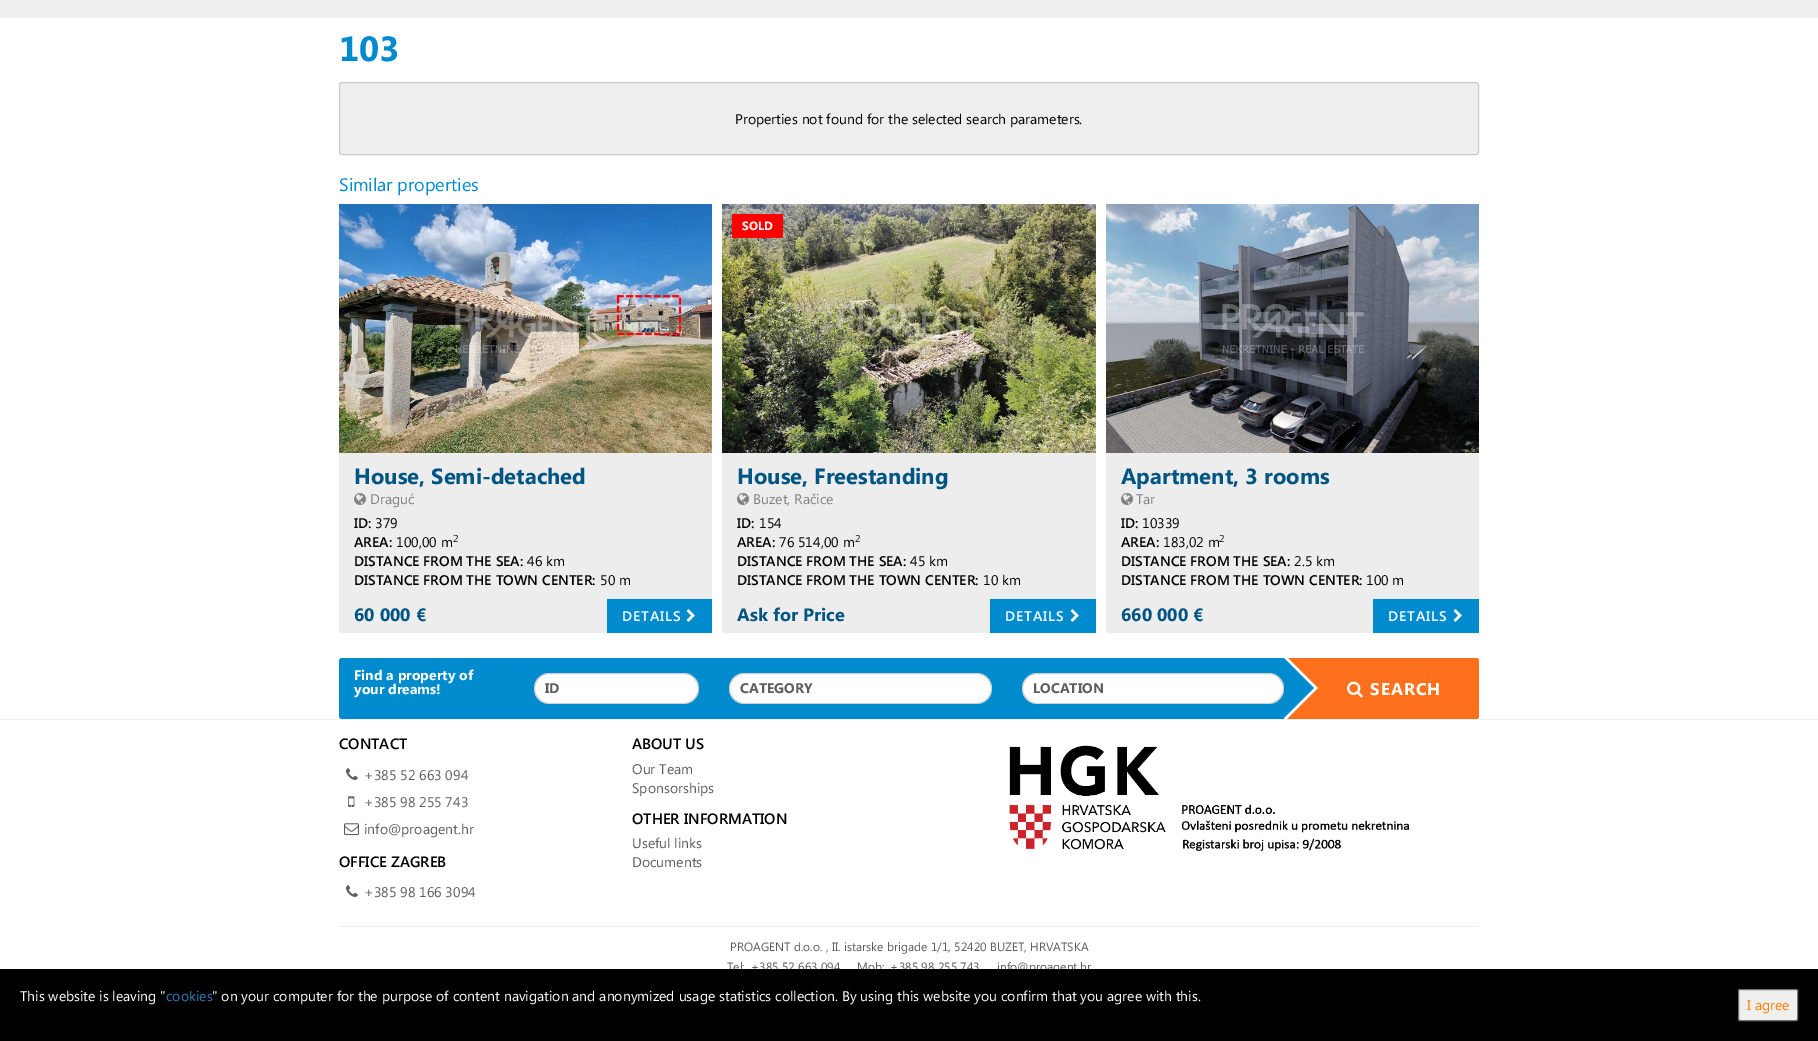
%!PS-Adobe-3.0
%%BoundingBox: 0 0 1818 1041
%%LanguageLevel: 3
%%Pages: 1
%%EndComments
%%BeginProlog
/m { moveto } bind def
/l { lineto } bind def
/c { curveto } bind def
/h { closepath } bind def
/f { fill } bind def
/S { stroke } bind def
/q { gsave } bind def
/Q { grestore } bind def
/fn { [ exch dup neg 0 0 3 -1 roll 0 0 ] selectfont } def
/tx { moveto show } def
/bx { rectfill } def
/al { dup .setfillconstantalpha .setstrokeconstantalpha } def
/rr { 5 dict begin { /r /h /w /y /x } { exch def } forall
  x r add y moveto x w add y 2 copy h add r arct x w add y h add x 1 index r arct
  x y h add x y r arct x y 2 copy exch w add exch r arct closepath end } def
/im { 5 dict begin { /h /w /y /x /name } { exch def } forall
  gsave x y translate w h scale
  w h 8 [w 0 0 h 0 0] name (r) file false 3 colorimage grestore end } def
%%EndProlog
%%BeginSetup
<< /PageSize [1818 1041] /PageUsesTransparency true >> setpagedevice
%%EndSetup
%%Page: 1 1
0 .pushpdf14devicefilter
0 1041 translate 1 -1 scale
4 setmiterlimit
1 setgray
0 0 1818 1041 bx
0.937 setgray
0 0 1818 18 bx
/SegoeUI-Bold 35 fn
0 0.545 0.812 setrgbcolor
(103) 339 61 tx
0.933 setgray
339 82 1140 73 3 rr f
0.5 al
0.655 setgray
339.5 82.5 1139 72 2.5 rr S
/SegoeUI-Regular 14 fn
1 al
0 setgray
(Properties not found for the selected search parameters.) 735 124 tx
/SegoeUI-Regular 18 fn
0 0.545 0.812 setrgbcolor
(Similar properties) 339 191 tx
(image0.raw) 339 204 373 249 im
0.929 setgray
339 453 373 180 bx
/SegoeUI-Bold 22 fn
0 0.333 0.514 setrgbcolor
(House, Semi-detached) 354 484 tx
(image1.raw) 354 493 12 12 im
/SegoeUI-Regular 14 fn
0.51 setgray
(Draguć) 370 504 tx
/SegoeUI-SemiBold 14 fn
0 setgray
(ID:) 354 528 tx
/SegoeUI-Regular 14 fn
(379) 375 528 tx
/SegoeUI-SemiBold 14 fn
(AREA:) 354 547 tx
/SegoeUI-Regular 14 fn
(100,00 m) 396 547 tx
/SegoeUI-Regular 10 fn
(2) 453 542 tx
/SegoeUI-SemiBold 14 fn
(DISTANCE FROM THE SEA:) 354 566 tx
/SegoeUI-Regular 14 fn
(46 km) 527 566 tx
/SegoeUI-SemiBold 14 fn
(DISTANCE FROM THE TOWN CENTER:) 354 585 tx
/SegoeUI-Regular 14 fn
(50 m) 600 585 tx
/SegoeUI-Bold 18 fn
0 0.333 0.514 setrgbcolor
(60 000 €) 354 621 tx
0 0.545 0.812 setrgbcolor
607 599 105 34 bx
/SegoeUI-SemiBold 14 fn
1 setgray
622 621 m 1 0 (DETAILS) ashow
(image2.raw) 686 609 9 13 im
(image3.raw) 722 204 374 249 im
1 0 0 setrgbcolor
732 214 51 24 bx
/SegoeUI-Bold 12 fn
1 setgray
(SOLD) 742 230 tx
0.929 setgray
722 453 374 180 bx
/SegoeUI-Bold 22 fn
0 0.333 0.514 setrgbcolor
(House, Freestanding) 737 484 tx
(image1.raw) 737 493 12 12 im
/SegoeUI-Regular 14 fn
0.51 setgray
(Buzet, Račice) 753 504 tx
/SegoeUI-SemiBold 14 fn
0 setgray
(ID:) 737 528 tx
/SegoeUI-Regular 14 fn
(154) 759 528 tx
/SegoeUI-SemiBold 14 fn
(AREA:) 737 547 tx
/SegoeUI-Regular 14 fn
(76 514,00 m) 779 547 tx
/SegoeUI-Regular 10 fn
(2) 855 542 tx
/SegoeUI-SemiBold 14 fn
(DISTANCE FROM THE SEA:) 737 566 tx
/SegoeUI-Regular 14 fn
(45 km) 910 566 tx
/SegoeUI-SemiBold 14 fn
(DISTANCE FROM THE TOWN CENTER:) 737 585 tx
/SegoeUI-Regular 14 fn
(10 km) 983 585 tx
/SegoeUI-Bold 18 fn
0 0.333 0.514 setrgbcolor
(Ask for Price) 737 621 tx
0 0.545 0.812 setrgbcolor
990 599 106 34 bx
/SegoeUI-SemiBold 14 fn
1 setgray
1005 621 m 1 0 (DETAILS) ashow
(image2.raw) 1070 609 9 13 im
(image4.raw) 1106 204 373 249 im
0.929 setgray
1106 453 373 180 bx
/SegoeUI-Bold 22 fn
0 0.333 0.514 setrgbcolor
(Apartment, 3 rooms) 1121 484 tx
(image1.raw) 1121 493 12 12 im
/SegoeUI-Regular 14 fn
0.51 setgray
(Tar) 1136 504 tx
/SegoeUI-SemiBold 14 fn
0 setgray
(ID:) 1121 528 tx
/SegoeUI-Regular 14 fn
(10339) 1142 528 tx
/SegoeUI-SemiBold 14 fn
(AREA:) 1121 547 tx
/SegoeUI-Regular 14 fn
(183,02 m) 1163 547 tx
/SegoeUI-Regular 10 fn
(2) 1219 542 tx
/SegoeUI-SemiBold 14 fn
(DISTANCE FROM THE SEA:) 1121 566 tx
/SegoeUI-Regular 14 fn
(2.5 km) 1294 566 tx
/SegoeUI-SemiBold 14 fn
(DISTANCE FROM THE TOWN CENTER:) 1121 585 tx
/SegoeUI-Regular 14 fn
(100 m) 1366 585 tx
/SegoeUI-Bold 18 fn
0 0.333 0.514 setrgbcolor
(660 000 €) 1121 621 tx
0 0.545 0.812 setrgbcolor
1373 599 106 34 bx
/SegoeUI-SemiBold 14 fn
1 setgray
1388 621 m 1 0 (DETAILS) ashow
(image2.raw) 1453 609 9 13 im
0 0.545 0.812 setrgbcolor
339 658 1140 61 3 rr f
/SegoeUI-Bold 14 fn
1 setgray
(Find a property of) 354 680 tx
(your dreams!) 354 694 tx
534 673 165 31 15.5 rr f
0.3 al
0.369 setgray
534.5 673.5 164 30 15 rr S
1 al
(ID) 545 693 tx
1 setgray
729 673 263 31 15.5 rr f
0.3 al
0.369 setgray
729.5 673.5 262 30 15 rr S
1 al
(CATEGORY) 740 693 tx
1 setgray
1022 673 262 31 15.5 rr f
0.3 al
0.369 setgray
1022.5 673.5 261 30 15 rr S
1 al
(LOCATION) 1033 693 tx
1 0.439 0.11 setrgbcolor
1284 658 m 1476 658 l 1477.5 658 1479 659.5 1479 661 c 1479 716 l 1479 717.5 1477.5 719 1476 719 c 1284 719 l h f
1 setgray
1284 658 m 1288 658 l 1318 688 l 1287 719 l 1284 719 l h f
0 0.545 0.812 setrgbcolor
1284 718 m 1284 658 l 1314 688 l h f
(image5.raw) 1347 681 16 17 im
/SegoeUI-Bold 17 fn
1 setgray
1370 695 m 1 0 (SEARCH) ashow
0.937 setgray
0 719 1818 1 bx
/SegoeUI-SemiBold 15 fn
0 setgray
(CONTACT) 339 749 tx
(image6.raw) 346 768 12 12 im
/SegoeUI-Regular 14 fn
0.369 setgray
(+385 52 663 094) 364 780 tx
(image7.raw) 348 796 7 11 im
(+385 98 255 743) 364 807 tx
(image8.raw) 344 823 15 13 im
(info@proagent.hr) 364 834 tx
/SegoeUI-SemiBold 15 fn
0 setgray
(OFFICE ZAGREB) 339 867 tx
(image6.raw) 346 885 12 12 im
/SegoeUI-Regular 14 fn
0.369 setgray
(+385 98 166 3094) 364 897 tx
/SegoeUI-SemiBold 15 fn
0 setgray
(ABOUT US) 632 749 tx
/SegoeUI-Regular 14 fn
0.369 setgray
(Our Team) 632 774 tx
(Sponsorships) 632 793 tx
/SegoeUI-SemiBold 15 fn
0 setgray
(OTHER INFORMATION) 632 824 tx
/SegoeUI-Regular 14 fn
0.369 setgray
(Useful links) 632 848 tx
(Documents) 632 867 tx
(image9.raw) 1009 745 401 106 im
0.937 setgray
339 926 1140 1 bx
/SegoeUI-Regular 12 fn
0.369 setgray
(PROAGENT d.o.o. , II. istarske brigade 1/1, 52420 BUZET, HRVATSKA) 730 951 tx
(Tel: +385 52 663 094) 727 971 tx
(Mob: +385 98 255 743) 857 971 tx
(info@proagent.hr) 997 971 tx
0 setgray
0 969 1818 72 bx
/SegoeUI-Regular 14 fn
1 setgray
(This website is leaving ") 20 1001 tx
0.2 0.478 0.718 setrgbcolor
(cookies) 166 1001 tx
1 setgray
(" on your computer for the purpose of content navigation and anonymized usage statistics collection. By using this website you confirm that you agree with this.) 212 1001 tx
0.937 setgray
1738.5 989.5 59 31 1.5 rr q f Q
0.463 setgray
S
1 0.494 0 setrgbcolor
(I agree) 1747 1010 tx
.poppdf14devicefilter showpage
%%EOF
